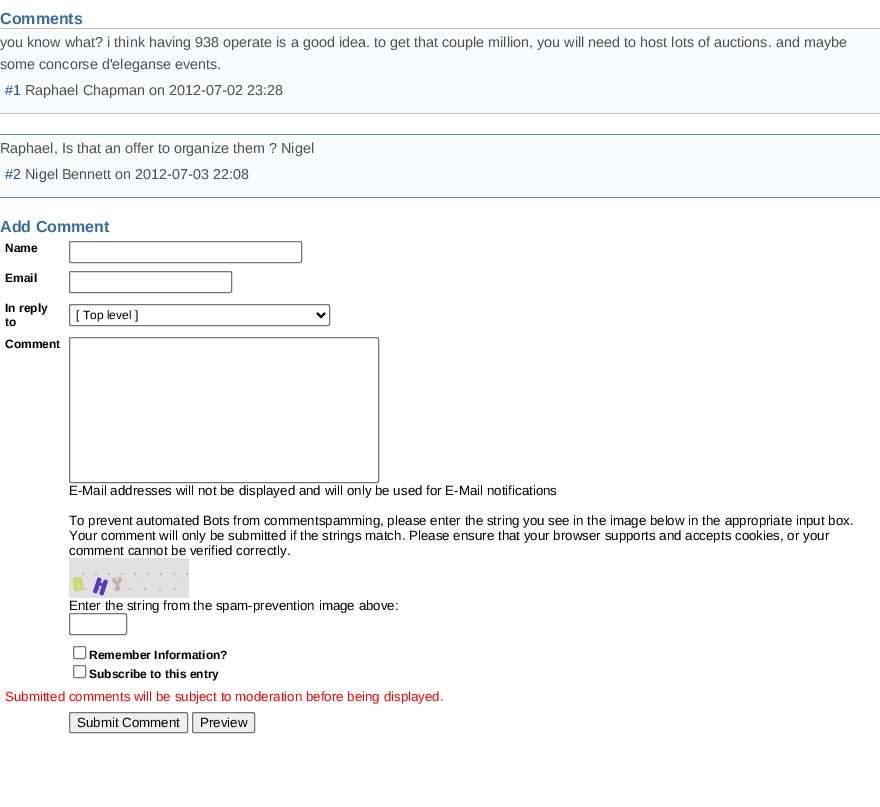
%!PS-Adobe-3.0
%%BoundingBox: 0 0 880 807
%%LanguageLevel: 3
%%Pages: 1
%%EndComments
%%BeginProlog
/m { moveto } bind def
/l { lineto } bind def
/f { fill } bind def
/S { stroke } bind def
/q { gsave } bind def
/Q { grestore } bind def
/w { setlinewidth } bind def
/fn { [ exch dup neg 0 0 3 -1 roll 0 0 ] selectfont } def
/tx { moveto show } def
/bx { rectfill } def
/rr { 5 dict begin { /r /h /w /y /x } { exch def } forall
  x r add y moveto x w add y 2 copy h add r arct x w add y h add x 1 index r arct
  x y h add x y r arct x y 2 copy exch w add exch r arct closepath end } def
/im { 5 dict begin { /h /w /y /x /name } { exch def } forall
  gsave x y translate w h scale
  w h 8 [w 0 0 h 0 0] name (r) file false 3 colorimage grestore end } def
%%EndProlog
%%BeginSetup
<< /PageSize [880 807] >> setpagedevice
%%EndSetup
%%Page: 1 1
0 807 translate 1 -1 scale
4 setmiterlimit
1 setgray
0 0 880 807 bx
/LiberationSans-Bold 16 fn
0.2 0.427 0.624 setrgbcolor
(Comments) 0 24 tx
0.98 0.984 0.988 setrgbcolor
0 29 880 84 bx
0.753 setgray
0 28 880 1 bx
0 113 880 1 bx
/LiberationSans-Regular 14.4 fn
0.314 setgray
(you know what? i think having 938 operate is a good idea. to get that couple million, you will need to host lots of auctions. and maybe) 0 47 tx
(some concorse d'eleganse events.) 0 69 tx
0.137 0.333 0.529 setrgbcolor
(#1) 5 95 tx
0.314 setgray
(Raphael Chapman on 2012-07-02 23:28) 25 95 tx
0.98 0.984 0.988 setrgbcolor
0 135 880 62 bx
0.373 0.565 0.729 setrgbcolor
0 134 880 1 bx
0 197 880 1 bx
0.314 setgray
(Raphael, Is that an offer to organize them ? Nigel) 0 153 tx
0.137 0.333 0.529 setrgbcolor
(#2) 5 179 tx
0.314 setgray
(Nigel Bennett on 2012-07-03 22:08) 25 179 tx
/LiberationSans-Bold 16 fn
0.2 0.427 0.624 setrgbcolor
(Add Comment) 0 232 tx
/LiberationSans-Bold 12 fn
0 setgray
(Name) 5 252 tx
0.463 setgray
69.5 241.5 232 21 1.5 rr S
0 setgray
(Email) 5 282 tx
0.463 setgray
69.5 271.5 162 21 1.5 rr S
0 setgray
(In reply) 5 312 tx
(to) 5 326 tx
0.463 setgray
69.5 304.5 260 21 1.5 rr S
0 setgray
2 w
317 313 m 321 317 l 325 313 l S
/LiberationSans-Regular 12 fn
([ Top level ]) 76 319 tx
/LiberationSans-Bold 12 fn
(Comment) 5 348 tx
0.463 setgray
1 w
69.5 337.5 309 145 1.5 rr S
/LiberationSans-Regular 13.33 fn
0 setgray
(E-Mail addresses will not be displayed and will only be used for E-Mail notifications) 69 495 tx
(To prevent automated Bots from commentspamming, please enter the string you see in the image below in the appropriate input box.) 69 525 tx
(Your comment will only be submitted if the strings match. Please ensure that your browser supports and accepts cookies, or your) 69 540 tx
(comment cannot be verified correctly.) 69 555 tx
(image0.raw) 69 558 120 40 im
(Enter the string from the spam-prevention image above:) 69 610 tx
0.463 setgray
69.5 613.5 57 21 1.5 rr S
73.5 646.5 12 12 1.5 rr S
/LiberationSans-Bold 12 fn
0 setgray
(Remember Information?) 89 659 tx
0.463 setgray
73.5 665.5 12 12 1.5 rr S
0 setgray
(Subscribe to this entry) 89 678 tx
/LiberationSans-Regular 13.33 fn
1 0 0 setrgbcolor
(Submitted comments will be subject to moderation before being displayed.) 5 701 tx
0.937 setgray
69.5 712.5 118 20 1.5 rr q f Q
0.463 setgray
S
0 setgray
(Submit Comment) 77 727 tx
0.937 setgray
192.5 712.5 62 20 1.5 rr q f Q
0.463 setgray
S
0 setgray
(Preview) 200 727 tx
showpage
%%EOF
